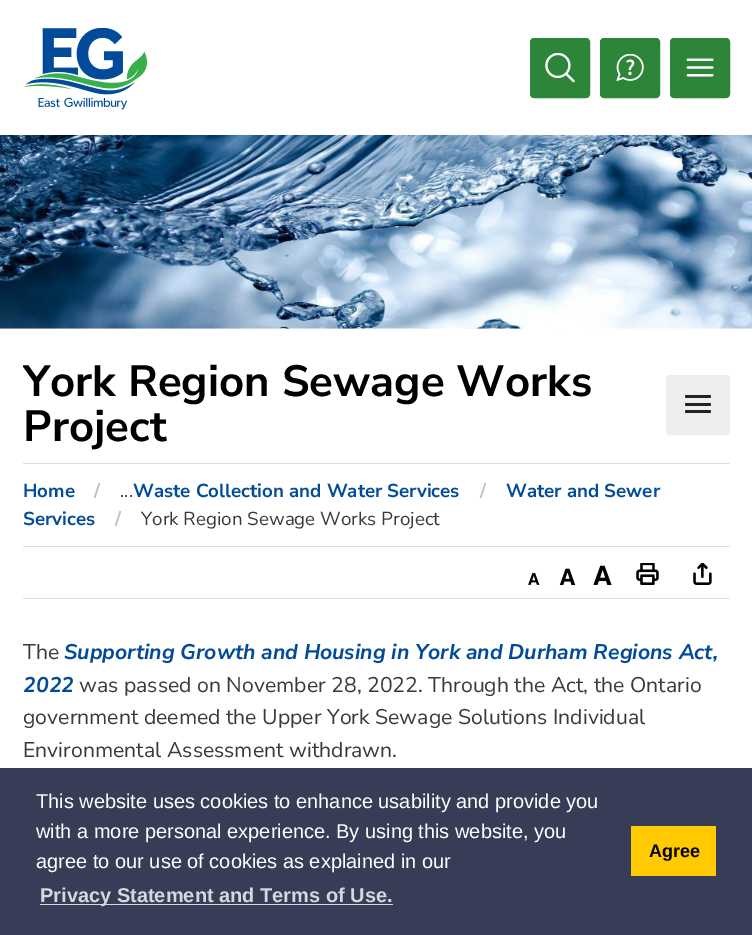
%!PS-Adobe-3.0
%%BoundingBox: 0 0 752 935
%%LanguageLevel: 3
%%Pages: 1
%%EndComments
%%BeginProlog
/f { fill } bind def
/S { stroke } bind def
/q { gsave } bind def
/Q { grestore } bind def
/fn { [ exch dup neg 0 0 3 -1 roll 0 0 ] selectfont } def
/tx { moveto show } def
/bx { rectfill } def
/rr { 5 dict begin { /r /h /w /y /x } { exch def } forall
  x r add y moveto x w add y 2 copy h add r arct x w add y h add x 1 index r arct
  x y h add x y r arct x y 2 copy exch w add exch r arct closepath end } def
/im { 5 dict begin { /h /w /y /x /name } { exch def } forall
  gsave x y translate w h scale
  w h 8 [w 0 0 h 0 0] name (r) file false 3 colorimage grestore end } def
%%EndProlog
%%BeginSetup
<< /PageSize [752 935] >> setpagedevice
%%EndSetup
%%Page: 1 1
0 935 translate 1 -1 scale
4 setmiterlimit
1 setgray
0 0 752 935 bx
(image0.raw) 23 28 125 82 im
0.176 0.522 0.224 setrgbcolor
530.5 38.5 59 59 3.5 rr q f Q
S
(image1.raw) 545 53 30 30 im
600.5 38.5 59 59 3.5 rr q f Q
S
(image2.raw) 616 54 28 27 im
670.5 38.5 59 59 3.5 rr q f Q
S
(image3.raw) 686 58 28 19 im
(image4.raw) 0 135 752 194 im
q
23 360 643 90 rectclip
/NunitoSans-Bold 43.75 fn
0 setgray
(York Region Sewage Works) 23 396 tx
Q
/NunitoSans-Bold 43.75 fn
0 setgray
(Project) 23 441 tx
0.933 setgray
666.5 375.5 63 59 3.5 rr q f Q
S
0.133 setgray
685 403 26 3 1.5 rr f
685 395 26 3 1.5 rr f
685 410 26 3 1.5 rr f
0.867 setgray
23 463 707 1 bx
23 598 707 1 bx
/NunitoSans-Bold 18.75 fn
0.008 0.294 0.6 setrgbcolor
(Home) 23 497 tx
0.749 setgray
(/) 94 497 tx
0.008 0.294 0.6 setrgbcolor
(Waste Collection and Water Services) 133 497 tx
0.749 setgray
(/) 480 497 tx
0.008 0.294 0.6 setrgbcolor
(Water and Sewer) 506 497 tx
(Services) 23 525 tx
0.749 setgray
(/) 115 525 tx
/NunitoSans-Regular 18.75 fn
0.227 setgray
(...) 120 497 tx
(York Region Sewage Works Project) 141 525 tx
0.867 setgray
23 546 707 1 bx
(image5.raw) 528 573 12 12 im
(image6.raw) 559 568 17 17 im
(image7.raw) 593 565 19 20 im
(image8.raw) 636 563 23 22 im
(image9.raw) 693 563 19 22 im
/NunitoSans-Regular 21.25 fn
0.227 setgray
(The) 23 659 tx
/NunitoSans-BoldItalic 21.25 fn
0.008 0.294 0.6 setrgbcolor
(Supporting Growth and Housing in York and Durham Regions Act,) 64 659 tx
(2022) 23 692 tx
/NunitoSans-Regular 21.25 fn
0.227 setgray
(was passed on November 28, 2022. Through the Act, the Ontario) 79 692 tx
(government deemed the Upper York Sewage Solutions Individual) 23 724 tx
(Environmental Assessment withdrawn.) 23 757 tx
0.216 0.239 0.341 setrgbcolor
0 768 752 167 bx
/LiberationSans-Regular 20 fn
1 setgray
(This website uses cookies to enhance usability and provide you) 36 808 tx
(with a more personal experience. By using this website, you) 36 838 tx
(agree to our use of cookies as explained in our) 36 868 tx
0.843 0.847 0.867 setrgbcolor
40 904 353 1 bx
/LiberationSans-Bold 20 fn
(Privacy Statement and Terms of Use.) 40 902 tx
1 0.792 0 setrgbcolor
631 826 85 50 bx
/LiberationSans-Bold 18 fn
0 setgray
(Agree) 649 857 tx
showpage
%%EOF
